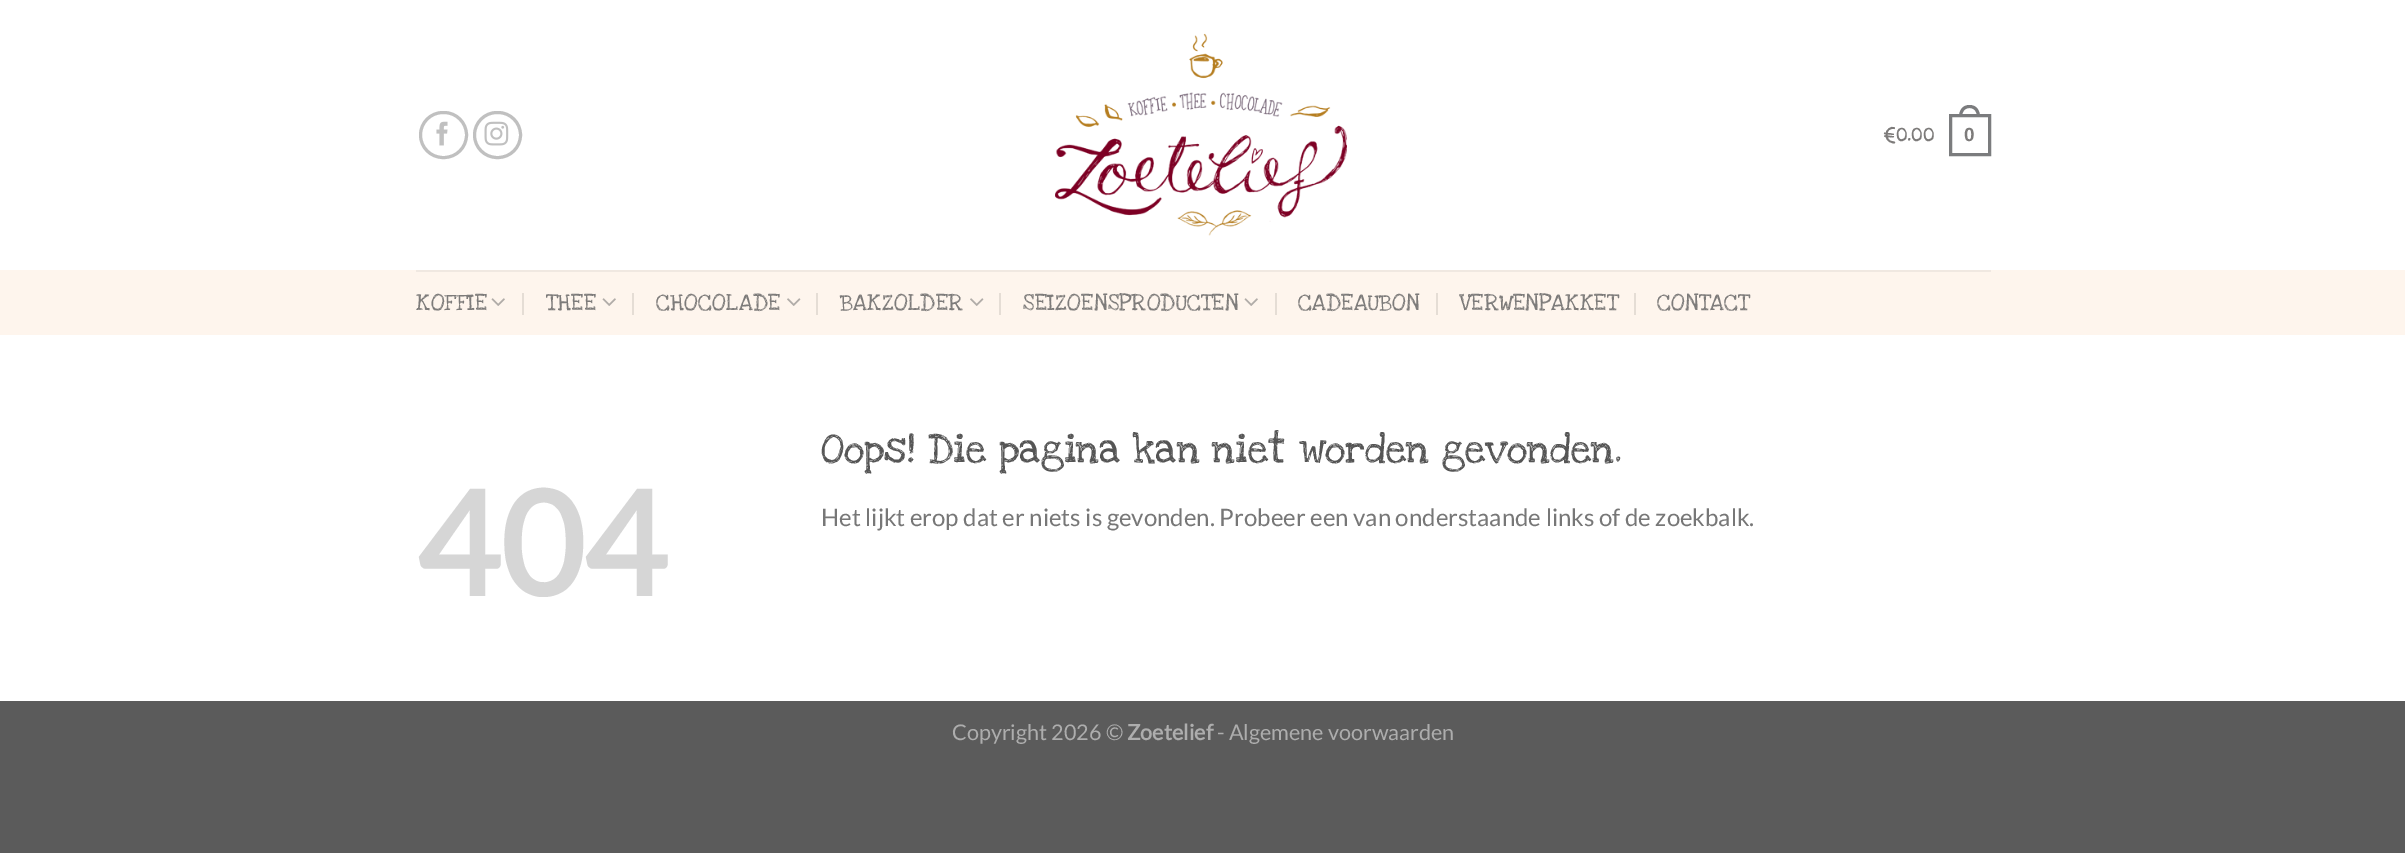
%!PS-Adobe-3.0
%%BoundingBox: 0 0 2405 853
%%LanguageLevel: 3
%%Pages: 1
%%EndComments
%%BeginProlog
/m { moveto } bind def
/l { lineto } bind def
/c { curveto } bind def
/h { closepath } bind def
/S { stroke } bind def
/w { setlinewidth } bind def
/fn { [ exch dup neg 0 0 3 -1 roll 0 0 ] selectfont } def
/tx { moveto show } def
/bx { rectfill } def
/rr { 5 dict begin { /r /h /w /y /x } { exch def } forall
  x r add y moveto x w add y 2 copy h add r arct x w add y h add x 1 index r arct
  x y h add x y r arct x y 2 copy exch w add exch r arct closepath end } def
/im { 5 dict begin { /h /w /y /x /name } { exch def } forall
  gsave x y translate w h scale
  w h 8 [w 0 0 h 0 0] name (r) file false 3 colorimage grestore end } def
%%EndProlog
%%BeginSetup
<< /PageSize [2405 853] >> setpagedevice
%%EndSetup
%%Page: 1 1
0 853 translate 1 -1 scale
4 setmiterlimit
0.357 setgray
0 0 2405 853 bx
1 setgray
0 0 2405 701 bx
0.753 setgray
3 w
420.5 112.5 46 45 22.5 rr S
(image0.raw) 436 121 12 25 im
474.5 112.5 46 45 22.5 rr S
(image1.raw) 484 121 25 25 im
(image2.raw) 1055 33 292 203 im
/LoveYaLikeASister-Bold 19 fn
0.49 0.482 0.478 setrgbcolor
1884 141 m 0.5 0 (€0.00) ashow
0.482 0.486 0.494 setrgbcolor
1950.5 115.5 39 39 rectstroke
1969.5 105 m 1976.5 105 1980 110.5 1980 117 c 1959 117 l 1959 110.5 1962.5 105 1969.5 105 c h 1969.5 108 m 1975 108 1977 112.5 1977 117 c 1962 117 l 1962 112.5 1964 108 1969.5 108 c h eofill
/LiberationSans-Bold 19 fn
0.49 0.482 0.478 setrgbcolor
1964 141 m 0.5 0 (0) ashow
0.996 0.961 0.929 setrgbcolor
0 270 2405 65 bx
0.941 0.91 0.882 setrgbcolor
416 270 1575 2 bx
/LoveYaLikeASister-Regular 24 fn
0.49 0.482 0.478 setrgbcolor
416 310 m 0.5 0 (KOFFIE) ashow
(image3.raw) 491 298 14 8 im
0.898 0.867 0.835 setrgbcolor
522 293 2 22 bx
0.49 0.482 0.478 setrgbcolor
546 310 m 0.5 0 (THEE) ashow
(image3.raw) 602 298 14 8 im
0.898 0.867 0.835 setrgbcolor
632 293 2 22 bx
0.49 0.482 0.478 setrgbcolor
656 310 m 0.5 0 (CHOCOLADE) ashow
(image4.raw) 787 298 14 8 im
0.898 0.867 0.835 setrgbcolor
816 293 2 22 bx
0.49 0.482 0.478 setrgbcolor
840 310 m 0.5 0 (BAKZOLDER) ashow
(image4.raw) 970 298 14 8 im
0.898 0.867 0.835 setrgbcolor
999 293 2 22 bx
0.49 0.482 0.478 setrgbcolor
1023 310 m 0.5 0 (SEIZOENSPRODUCTEN) ashow
(image3.raw) 1244 298 14 8 im
0.898 0.867 0.835 setrgbcolor
1275 293 2 22 bx
0.49 0.482 0.478 setrgbcolor
1298 310 m 0.5 0 (CADEAUBON) ashow
0.898 0.867 0.835 setrgbcolor
1436 293 2 22 bx
0.49 0.482 0.478 setrgbcolor
1459 310 m 0.5 0 (VERWENPAKKET) ashow
0.898 0.867 0.835 setrgbcolor
1634 293 2 22 bx
0.49 0.482 0.478 setrgbcolor
1657 310 m 0.5 0 (CONTACT) ashow
/LoveYaLikeASister-Regular 40.75 fn
0.333 setgray
(Oops! Die pagina kan niet worden gevonden.) 821 462 tx
/Lato-Regular 24 fn
0.467 setgray
(Het lijkt erop dat er niets is gevonden. Probeer een van onderstaande links of de zoekbalk.) 821 526 tx
/Lato-Bold 144 fn
0.839 setgray
(404) 416 596 tx
/Lato-Regular 21.6 fn
0.678 setgray
(Copyright 2026 ©) 952 740 tx
/Lato-Bold 21.6 fn
(Zoetelief) 1127 740 tx
/Lato-Regular 21.6 fn
(- Algemene voorwaarden) 1217 740 tx
showpage
%%EOF
